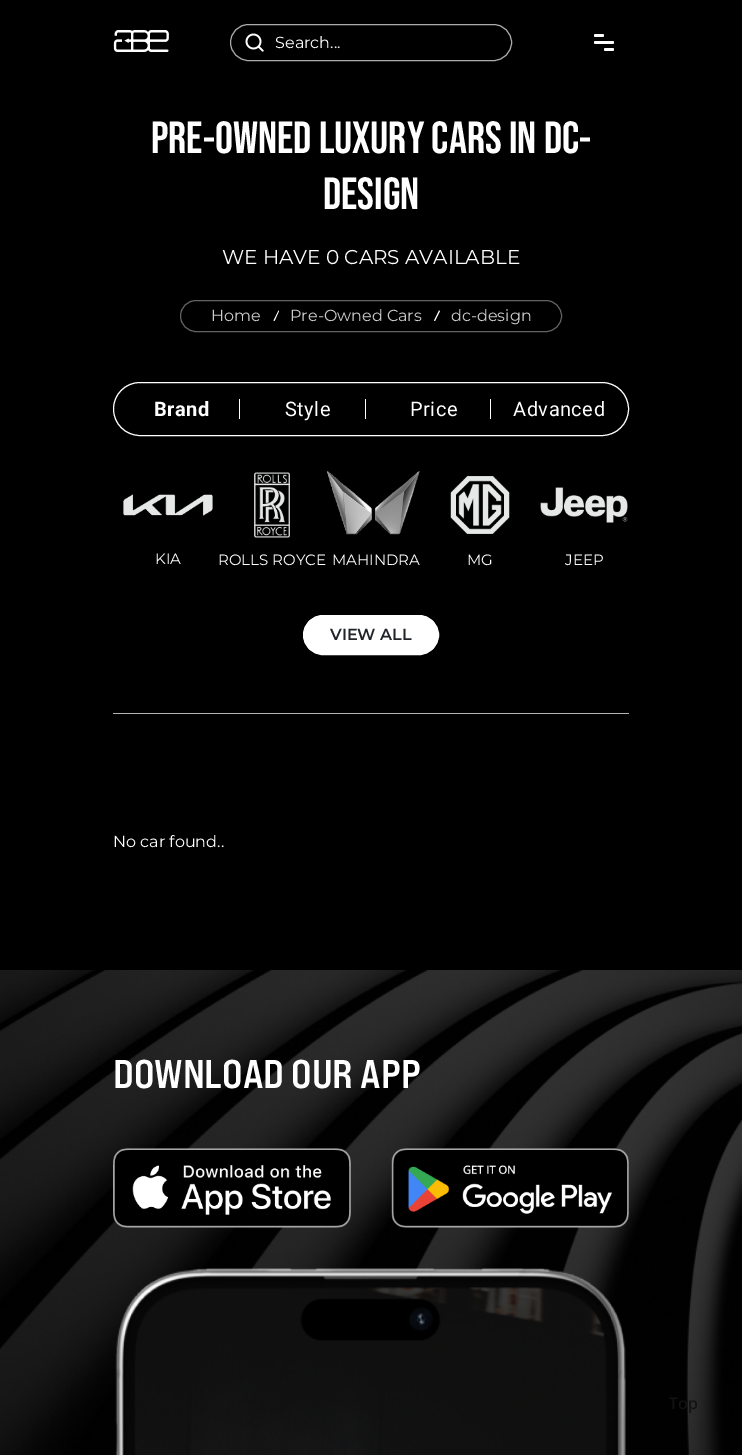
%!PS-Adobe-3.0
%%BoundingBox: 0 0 742 1455
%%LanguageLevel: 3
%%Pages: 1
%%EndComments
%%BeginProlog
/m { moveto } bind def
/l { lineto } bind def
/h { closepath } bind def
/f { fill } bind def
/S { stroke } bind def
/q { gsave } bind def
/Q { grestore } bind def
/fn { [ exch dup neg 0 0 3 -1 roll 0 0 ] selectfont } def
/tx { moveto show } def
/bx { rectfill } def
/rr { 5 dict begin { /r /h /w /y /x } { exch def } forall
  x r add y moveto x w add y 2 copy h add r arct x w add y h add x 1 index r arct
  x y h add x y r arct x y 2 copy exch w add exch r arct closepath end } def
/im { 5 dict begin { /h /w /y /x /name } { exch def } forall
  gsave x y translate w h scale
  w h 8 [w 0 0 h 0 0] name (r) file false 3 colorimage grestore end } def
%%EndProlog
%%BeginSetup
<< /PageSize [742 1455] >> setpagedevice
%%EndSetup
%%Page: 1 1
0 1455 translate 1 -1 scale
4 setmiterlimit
0 setgray
0 0 742 1455 bx
(image0.raw) 113 30 56 22 im
0.671 setgray
230.5 24.5 281 36 18 rr S
(image1.raw) 245 33 19 19 im
/Montserrat-Regular 16 fn
1 setgray
(Search...) 275 48 tx
594 34 10 3 1.5 rr f
594 41 20 3 1.5 rr f
604 48 10 3 1.5 rr f
/BebasNeue-Bold 45 fn
(PRE-OWNED LUXURY CARS IN DC-) 151 153 tx
(DESIGN) 323 209 tx
/Montserrat-Regular 20 fn
(WE HAVE 0 CARS AVAILABLE) 222 264 tx
0.384 setgray
180.5 300.5 381 31 15.5 rr S
/Montserrat-Regular 16 fn
0.8 setgray
(Home) 211 321 tx
1 setgray
273.5 320.5 m 278.5 310.5 l 279 311 l 274.5 321 l h f
0.8 setgray
(Pre-Owned Cars) 290 321 tx
1 setgray
434 320.5 m 439 310.5 l 440 311 l 435 321 l h f
0.8 setgray
(dc-design) 451 321 tx
1 setgray
113.5 382.5 515 53 26.5 rr S
/Roboto-Bold 20 fn
154 416 m 0.5 0 (Brand) ashow
239 399 1 20 bx
/Roboto-Regular 20 fn
285 416 m 0.5 0 (Style) ashow
365 399 1 20 bx
410 416 m 0.5 0 (Price) ashow
490 399 1 20 bx
513 416 m 0.5 0 (Advanced) ashow
(image2.raw) 123 494 90 22 im
/Montserrat-Regular 15 fn
(KIA) 155 564 tx
(image3.raw) 254 472 36 66 im
(ROLLS ROYCE) 218 565 tx
(image4.raw) 327 471 93 64 im
(MAHINDRA) 332 565 tx
(image5.raw) 450 476 60 58 im
(MG) 467 565 tx
(image6.raw) 540 487 88 36 im
(JEEP) 565 565 tx
303.5 615.5 135 39 19.5 rr q f Q
S
/Montserrat-SemiBold 16 fn
0.129 0.145 0.161 setrgbcolor
(VIEW ALL) 330 640 tx
0.702 setgray
113 713 516 1 bx
/Montserrat-Regular 16 fn
1 setgray
(No car found..) 113 847 tx
(image7.raw) 0 970 742 485 im
/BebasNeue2-Bold 40 fn
(DOWNLOAD OUR APP) 113 1088 tx
(image8.raw) 113 1148 238 80 im
(image9.raw) 391 1148 238 80 im
(image10.raw) 115 1268 511 187 im
/NotoSans-Medium 16 fn
0.071 setgray
(Top) 669 1409 tx
showpage
%%EOF
